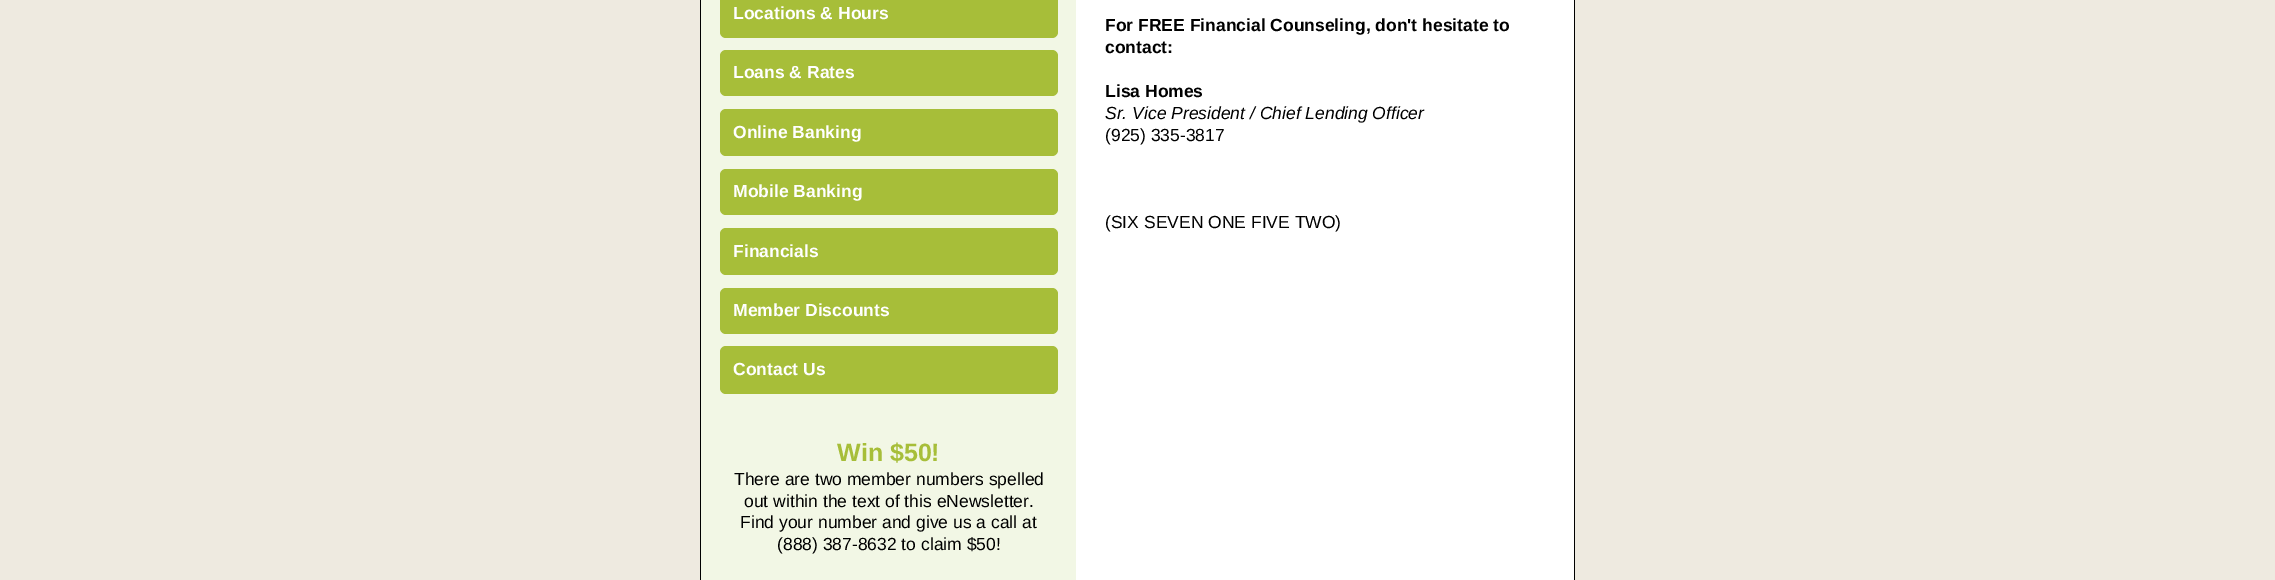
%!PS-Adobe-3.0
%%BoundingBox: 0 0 2275 580
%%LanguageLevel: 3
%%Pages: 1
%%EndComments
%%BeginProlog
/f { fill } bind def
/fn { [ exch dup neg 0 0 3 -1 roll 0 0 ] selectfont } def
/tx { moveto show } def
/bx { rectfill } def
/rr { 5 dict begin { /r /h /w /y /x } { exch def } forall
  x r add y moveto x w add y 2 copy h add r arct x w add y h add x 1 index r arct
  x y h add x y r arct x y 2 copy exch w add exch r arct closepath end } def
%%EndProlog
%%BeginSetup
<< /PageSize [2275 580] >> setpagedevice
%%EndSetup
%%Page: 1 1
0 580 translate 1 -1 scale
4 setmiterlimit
0.933 0.918 0.878 setrgbcolor
0 0 2275 580 bx
1 setgray
1076 0 498 580 bx
0 setgray
1574 0 1 580 bx
700 0 1 580 bx
0.949 0.969 0.898 setrgbcolor
701 0 375 580 bx
0.655 0.745 0.224 setrgbcolor
720 -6 338 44 6 rr f
/LiberationSans-Bold 17.5 fn
1 setgray
(Locations & Hours) 733 19 tx
0.655 0.745 0.224 setrgbcolor
720 50 338 46 6 rr f
1 setgray
(Loans & Rates) 733 78 tx
0.655 0.745 0.224 setrgbcolor
720 109 338 47 6 rr f
1 setgray
(Online Banking) 733 138 tx
0.655 0.745 0.224 setrgbcolor
720 169 338 46 6 rr f
1 setgray
(Mobile Banking) 733 197 tx
0.655 0.745 0.224 setrgbcolor
720 228 338 47 6 rr f
1 setgray
(Financials) 733 257 tx
0.655 0.745 0.224 setrgbcolor
720 288 338 46 6 rr f
1 setgray
(Member Discounts) 733 316 tx
0.655 0.745 0.224 setrgbcolor
720 346 338 48 6 rr f
1 setgray
(Contact Us) 733 375 tx
/LiberationSans-Bold 25 fn
0.655 0.745 0.224 setrgbcolor
(Win $50!) 837 461 tx
/LiberationSans-Regular 17.5 fn
0 setgray
(There are two member numbers spelled) 734 485 tx
(out within the text of this eNewsletter.) 744 507 tx
(Find your number and give us a call at) 740 528 tx
(\(888\) 387-8632 to claim $50!) 777 550 tx
/LiberationSans-Bold 17.5 fn
(For FREE Financial Counseling, don't hesitate to) 1105 31 tx
(contact:) 1105 53 tx
(Lisa Homes) 1105 97 tx
/LiberationSans-Italic 17.5 fn
(Sr. Vice President / Chief Lending Officer) 1105 119 tx
/LiberationSans-Regular 17.5 fn
(\(925\) 335-3817) 1105 141 tx
(\(SIX SEVEN ONE FIVE TWO\)) 1105 228 tx
showpage
%%EOF
